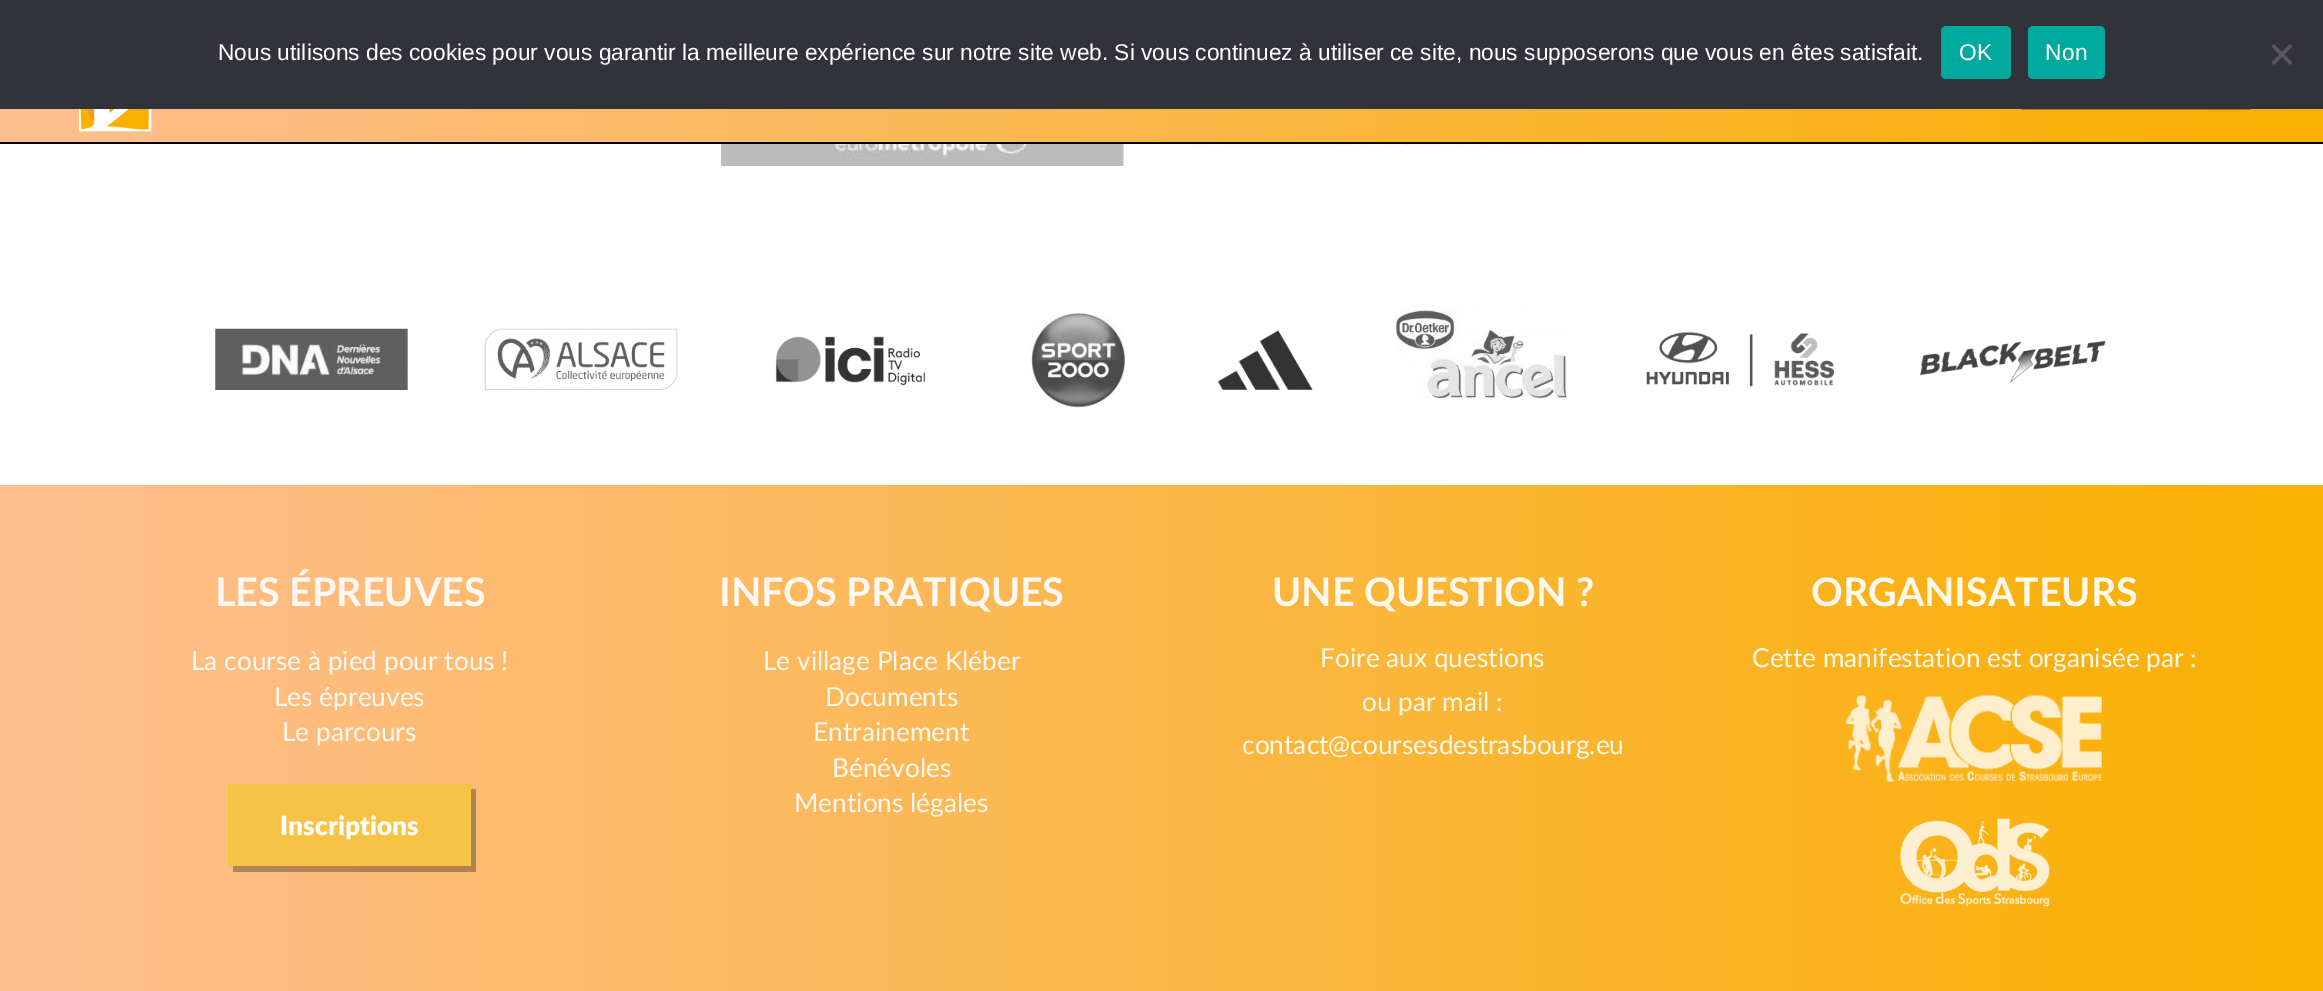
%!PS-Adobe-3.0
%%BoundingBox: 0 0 2323 991
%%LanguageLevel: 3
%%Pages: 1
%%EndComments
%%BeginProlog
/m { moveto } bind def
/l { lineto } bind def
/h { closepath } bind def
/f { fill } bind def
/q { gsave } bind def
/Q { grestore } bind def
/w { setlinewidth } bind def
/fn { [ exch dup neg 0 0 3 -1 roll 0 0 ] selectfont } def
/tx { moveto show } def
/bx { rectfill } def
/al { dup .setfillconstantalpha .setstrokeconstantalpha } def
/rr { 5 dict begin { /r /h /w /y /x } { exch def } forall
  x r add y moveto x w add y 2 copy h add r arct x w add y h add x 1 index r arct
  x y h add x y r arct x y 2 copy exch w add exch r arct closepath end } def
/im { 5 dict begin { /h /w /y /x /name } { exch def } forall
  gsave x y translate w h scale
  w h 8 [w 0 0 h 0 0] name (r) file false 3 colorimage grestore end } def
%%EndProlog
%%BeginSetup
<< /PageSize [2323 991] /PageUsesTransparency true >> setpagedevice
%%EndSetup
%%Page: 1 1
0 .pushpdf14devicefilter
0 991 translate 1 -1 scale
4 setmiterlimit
1 setgray
0 0 2323 991 bx
q 0 109 m 2323 109 l 2323 142 l 0 142 l h clip newpath
<< /ShadingType 2 /ColorSpace /DeviceRGB /Coords [0 71 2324 71] /Extend [true true] /Function << /FunctionType 2 /Domain [0 1] /C0 [1 0.749 0.565] /C1 [0.976 0.69 0] /N 1 >> >> shfill Q
0 setgray
0 142 2323 2 bx
1 setgray
2 w
80 27 70 103 rectstroke
(image0.raw) 80 109 69 21 im
0.3 al
0 setgray
2021 105 m 2021 110 l 2251 110 l 2251 44 l 2245 44 l 2245 105 l h f
1 al
0.196 0.196 0.227 setrgbcolor
0 0 2323 109 bx
/LiberationSans-Regular 22.75 fn
1 setgray
(Nous utilisons des cookies pour vous garantir la meilleure expérience sur notre site web. Si vous continuez à utiliser ce site, nous supposerons que vous en êtes satisfait.) 218 60 tx
0 0.663 0.616 setrgbcolor
1941 26 70 53 5 rr f
1 setgray
1959 60 m 0.5 0 (OK) ashow
0 0.663 0.616 setrgbcolor
2028 26 77 53 5 rr f
1 setgray
2045 60 m 0.5 0 (Non) ashow
0.349 0.349 0.365 setrgbcolor
2290 44 m 2292.5 46.5 l 2274 65 l 2271.5 62.5 l h f
2271.5 46.5 m 2274 44 l 2292.5 62.5 l 2290 65 l h f
(image1.raw) 721 144 403 22 im
(image2.raw) 1183 144 402 2 im
(image3.raw) 215 328 193 62 im
(image4.raw) 484 328 194 62 im
(image5.raw) 775 336 151 50 im
(image6.raw) 1031 313 95 95 im
(image7.raw) 1217 330 96 60 im
(image8.raw) 1395 309 173 92 im
(image9.raw) 1646 331 188 56 im
(image10.raw) 1920 340 186 43 im
q 0 485 m 2323 485 l 2323 991 l 0 991 l h clip newpath
<< /ShadingType 2 /ColorSpace /DeviceRGB /Coords [0 753 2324 753] /Extend [true true] /Function << /FunctionType 2 /Domain [0 1] /C0 [1 0.749 0.565] /C1 [0.976 0.69 0] /N 1 >> >> shfill Q
/Lato-Bold 39.4 fn
1 0.973 0.949 setrgbcolor
(LES ÉPREUVES) 215 606 tx
/Lato-Regular 26.25 fn
(La course à pied pour tous !) 191 670 tx
(Les épreuves) 274 706 tx
(Le parcours) 282 741 tx
0.3 al
0 setgray
233 866 m 233 872 l 476 872 l 476 789 l 471 789 l 471 866 l h f
1 al
0.965 0.765 0.271 setrgbcolor
228 784 243 82 bx
/Lato-Black 26.25 fn
1 setgray
(Inscriptions) 280 835 tx
/Lato-Bold 39.4 fn
1 0.973 0.949 setrgbcolor
(INFOS PRATIQUES) 719 606 tx
/Lato-Regular 26.25 fn
(Le village Place Kléber) 763 670 tx
(Documents) 825 706 tx
(Entrainement) 813 741 tx
(Bénévoles) 832 777 tx
(Mentions légales) 794 812 tx
/Lato-Bold 39.4 fn
1 0.973 0.922 setrgbcolor
(UNE QUESTION ?) 1272 606 tx
/Lato-Regular 26.25 fn
(Foire aux questions) 1320 667 tx
(ou par mail :) 1362 711 tx
(contact@coursesdestrasbourg.eu) 1242 754 tx
/Lato-Bold 39.4 fn
(ORGANISATEURS) 1811 606 tx
/Lato-Regular 26.25 fn
(Cette manifestation est organisée par :) 1752 667 tx
(image11.raw) 1846 694 256 88 im
(image12.raw) 1900 818 150 89 im
.poppdf14devicefilter showpage
%%EOF
